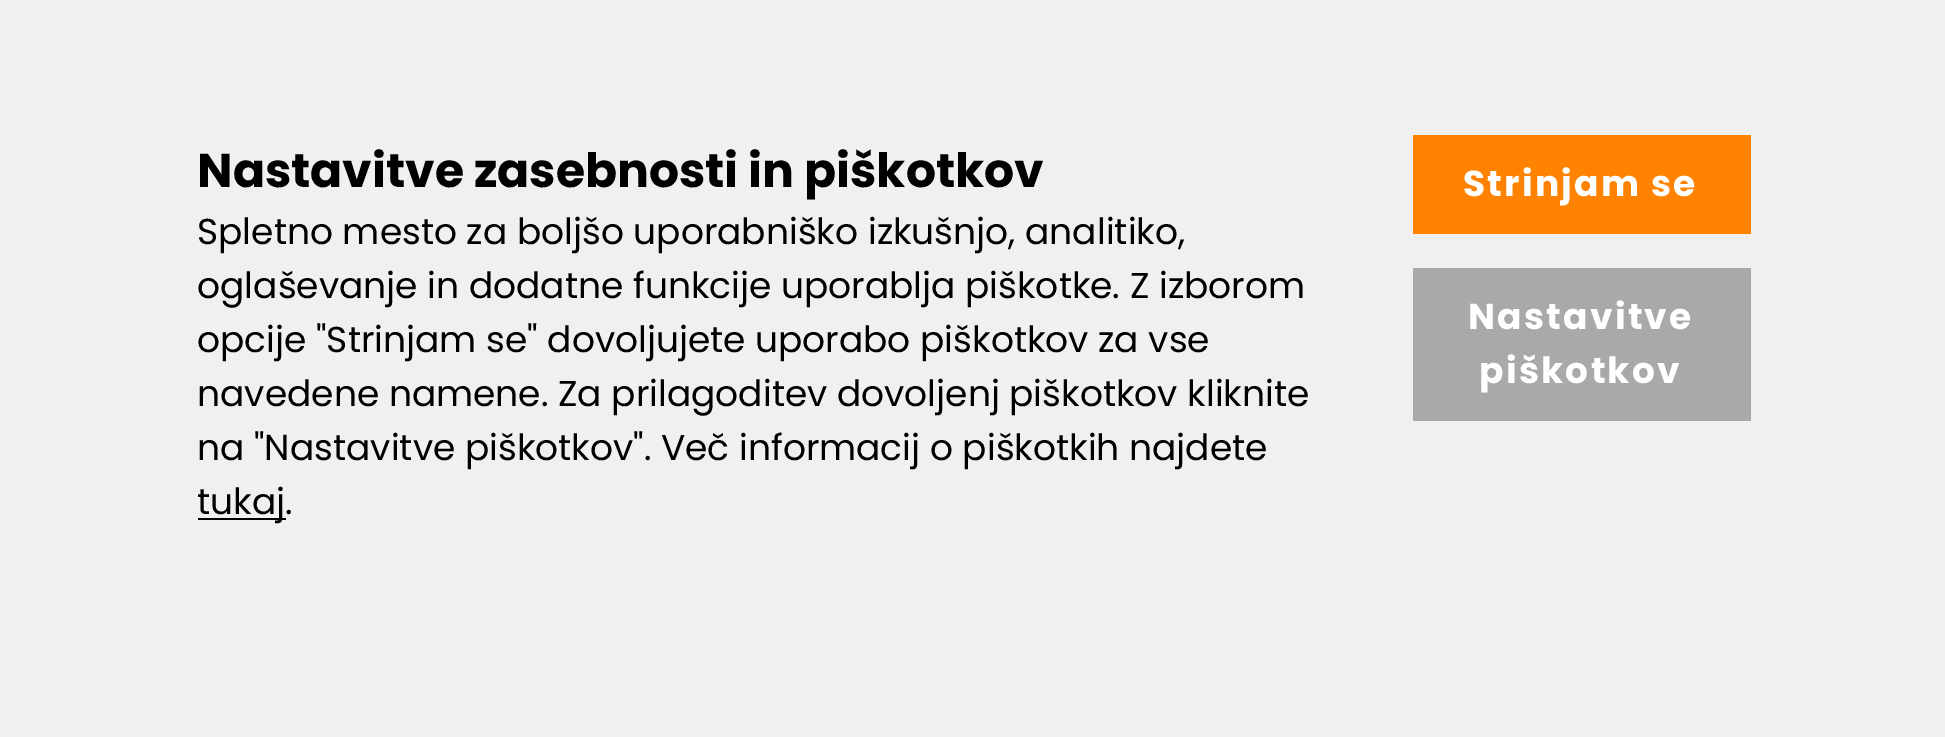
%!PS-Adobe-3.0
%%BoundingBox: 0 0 1945 737
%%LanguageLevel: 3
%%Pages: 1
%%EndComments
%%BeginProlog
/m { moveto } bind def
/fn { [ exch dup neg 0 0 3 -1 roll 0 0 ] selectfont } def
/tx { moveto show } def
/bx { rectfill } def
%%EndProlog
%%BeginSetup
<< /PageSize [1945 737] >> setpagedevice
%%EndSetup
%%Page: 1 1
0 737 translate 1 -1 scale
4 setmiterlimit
0.941 setgray
0 0 1945 737 bx
/Poppins-Bold 47.25 fn
0 setgray
(Nastavitve zasebnosti in piškotkov) 197 187 tx
/Poppins-Regular 36 fn
(Spletno mesto za boljšo uporabniško izkušnjo, analitiko,) 197 244 tx
(oglaševanje in dodatne funkcije uporablja piškotke. Z izborom) 197 298 tx
(opcije "Strinjam se" dovoljujete uporabo piškotkov za vse) 197 352 tx
(navedene namene. Za prilagoditev dovoljenj piškotkov kliknite) 197 406 tx
(na "Nastavitve piškotkov". Več informacij o piškotkih najdete) 197 460 tx
198 518 88 2 bx
(tukaj.) 197 514 tx
1 0.514 0 setrgbcolor
1413 135 338 99 bx
/Poppins-Bold 36 fn
1 setgray
1463 196 m 2.25 0 (Strinjam se) ashow
0.663 setgray
1413 268 338 153 bx
1 setgray
1468 329 m 2.25 0 (Nastavitve) ashow
1479 383 m 2.25 0 (piškotkov) ashow
showpage
%%EOF
